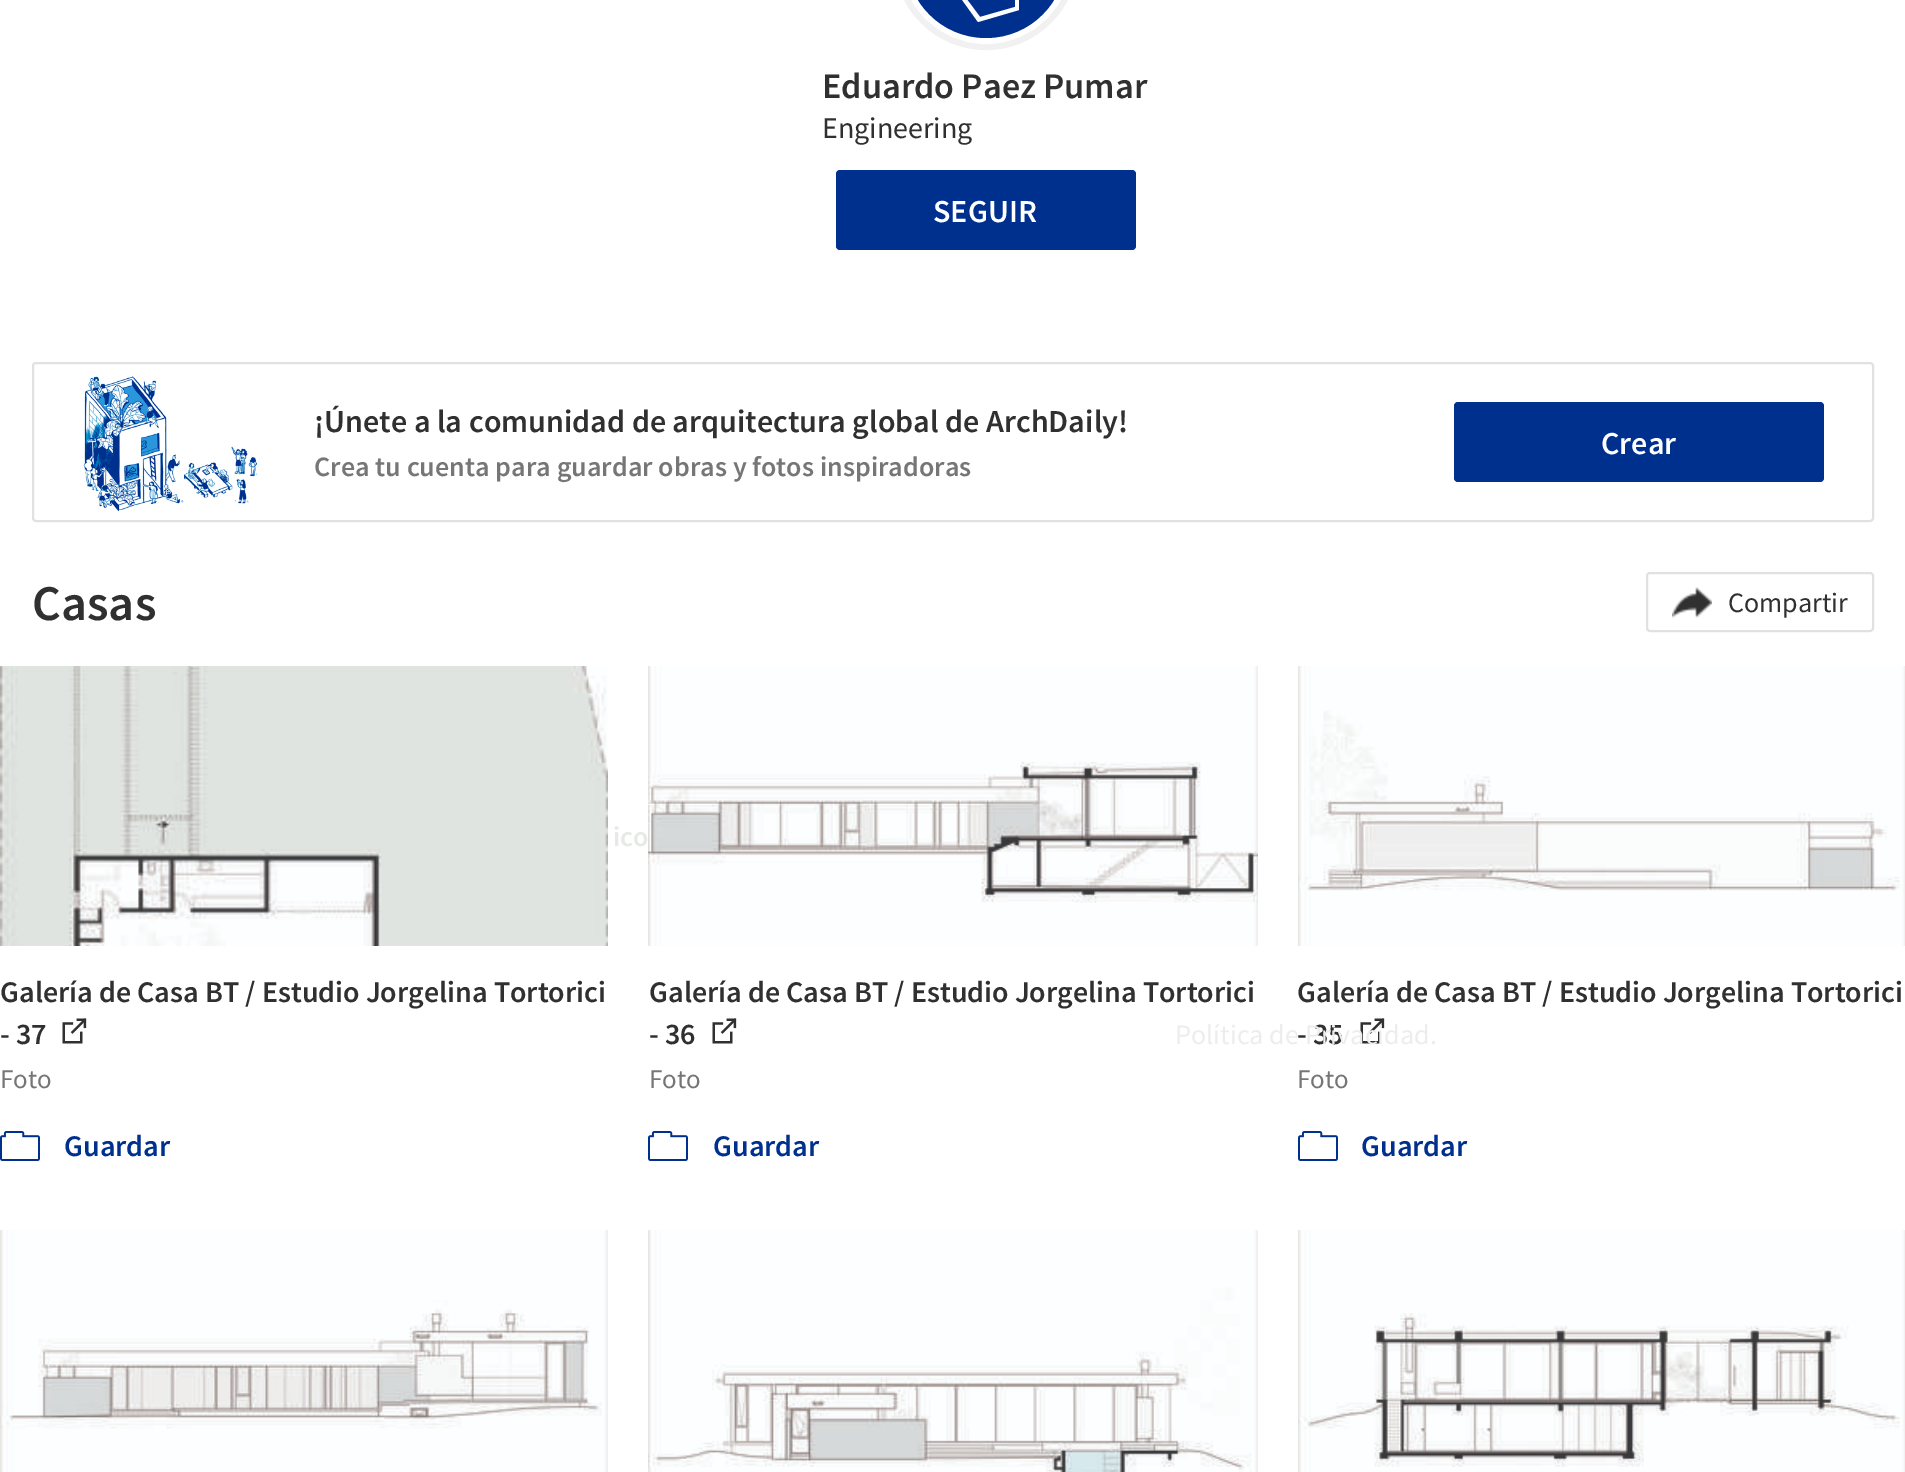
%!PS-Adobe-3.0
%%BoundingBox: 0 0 1905 1472
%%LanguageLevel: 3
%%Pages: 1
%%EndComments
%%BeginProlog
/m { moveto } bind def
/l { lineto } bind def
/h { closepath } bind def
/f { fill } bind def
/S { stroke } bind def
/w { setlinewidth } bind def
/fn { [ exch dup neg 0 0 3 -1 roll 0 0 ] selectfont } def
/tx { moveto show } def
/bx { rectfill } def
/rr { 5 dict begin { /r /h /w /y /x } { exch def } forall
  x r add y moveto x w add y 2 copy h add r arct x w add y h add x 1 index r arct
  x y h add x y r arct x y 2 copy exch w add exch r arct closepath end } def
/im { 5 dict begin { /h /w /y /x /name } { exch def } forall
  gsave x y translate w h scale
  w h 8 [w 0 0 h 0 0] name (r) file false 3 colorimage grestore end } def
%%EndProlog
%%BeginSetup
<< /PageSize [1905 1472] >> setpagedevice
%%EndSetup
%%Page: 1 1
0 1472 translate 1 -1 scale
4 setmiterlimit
1 setgray
0 0 1905 1472 bx
0.945 setgray
12 w
900 -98 172 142 86 rr S
1 setgray
6 w
903 -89 166 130 83 rr S
0 0.188 0.557 setrgbcolor
906 -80 160 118 80 rr f
1 setgray
978 22 m 950 -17 l 950 -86 l 992 -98 l 992 -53 l 1019 -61 l 1019 10 l h 954 -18 m 980 17 l 1015 7 l 1015 -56 l 992 -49 l 992 -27 l 977 -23 l 977 -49 l 988 -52 l 988 -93 l 954 -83 l h 981 -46 m 981 -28 l 988 -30 l 988 -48 l h f
/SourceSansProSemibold-SemiBold 36 fn
0.188 setgray
(Eduardo Paez Pumar) 822 98 tx
/SourceSansPro-Regular 30 fn
(Engineering) 822 138 tx
0 0.188 0.557 setrgbcolor
836 170 300 80 4 rr f
/SourceSansProSemibold-SemiBold 32 fn
1 setgray
(SEGUIR) 933 222 tx
0.882 setgray
2 w
33 363 1840 158 3 rr S
(image0.raw) 83 376 175 136 im
0.188 setgray
(¡Únete a la comunidad de arquitectura global de ArchDaily!) 314 432 tx
/SourceSansProSemibold-SemiBold 28 fn
0.463 setgray
(Crea tu cuenta para guardar obras y fotos inspiradoras) 314 476 tx
0 0.188 0.557 setrgbcolor
1454 402 370 80 4 rr f
/SourceSansProSemibold-SemiBold 32 fn
1 setgray
(Crear) 1601 454 tx
/SourceSansProSemibold-SemiBold 50 fn
0.188 setgray
(Casas) 32 620 tx
0.882 setgray
1647 573 226 58 3 rr S
(image1.raw) 1672 587 40 32 im
/SourceSansPro-Regular 28 fn
0.188 setgray
(Compartir) 1728 612 tx
(image2.raw) 0 666 608 280 im
/SourceSansProSemibold-SemiBold 30 fn
(Galería de Casa BT / Estudio Jorgelina Tortorici) 0 1002 tx
(- 37) 0 1044 tx
(image3.raw) 62 1018 25 26 im
/SourceSansPro-Regular 27 fn
0.463 setgray
(Foto) 0 1088 tx
(image4.raw) 0 1131 40 30 im
/SourceSansProSemibold-SemiBold 30 fn
0 0.188 0.557 setrgbcolor
(Guardar) 64 1156 tx
(image5.raw) 648 666 610 280 im
0.188 setgray
(Galería de Casa BT / Estudio Jorgelina Tortorici) 649 1002 tx
(- 36) 649 1044 tx
(image3.raw) 712 1018 25 26 im
/SourceSansPro-Regular 27 fn
0.463 setgray
(Foto) 649 1088 tx
(image4.raw) 648 1131 40 30 im
/SourceSansProSemibold-SemiBold 30 fn
0 0.188 0.557 setrgbcolor
(Guardar) 713 1156 tx
(image6.raw) 1298 666 607 280 im
0.188 setgray
(Galería de Casa BT / Estudio Jorgelina Tortorici) 1297 1002 tx
(- 35) 1297 1044 tx
(image3.raw) 1360 1018 25 26 im
/SourceSansPro-Regular 27 fn
0.463 setgray
(Foto) 1297 1088 tx
(image4.raw) 1298 1131 40 30 im
/SourceSansProSemibold-SemiBold 30 fn
0 0.188 0.557 setrgbcolor
(Guardar) 1361 1156 tx
(image7.raw) 0 1230 608 242 im
(image8.raw) 648 1230 610 242 im
(image9.raw) 1298 1230 607 242 im
/SourceSansProSemibold-SemiBold 28 fn
0.902 0.914 0.902 setrgbcolor
(ico) 613 846 tx
/SourceSansPro-Regular 28 fn
0.929 setgray
(Política de Privacidad.) 1175 1044 tx
showpage
%%EOF
